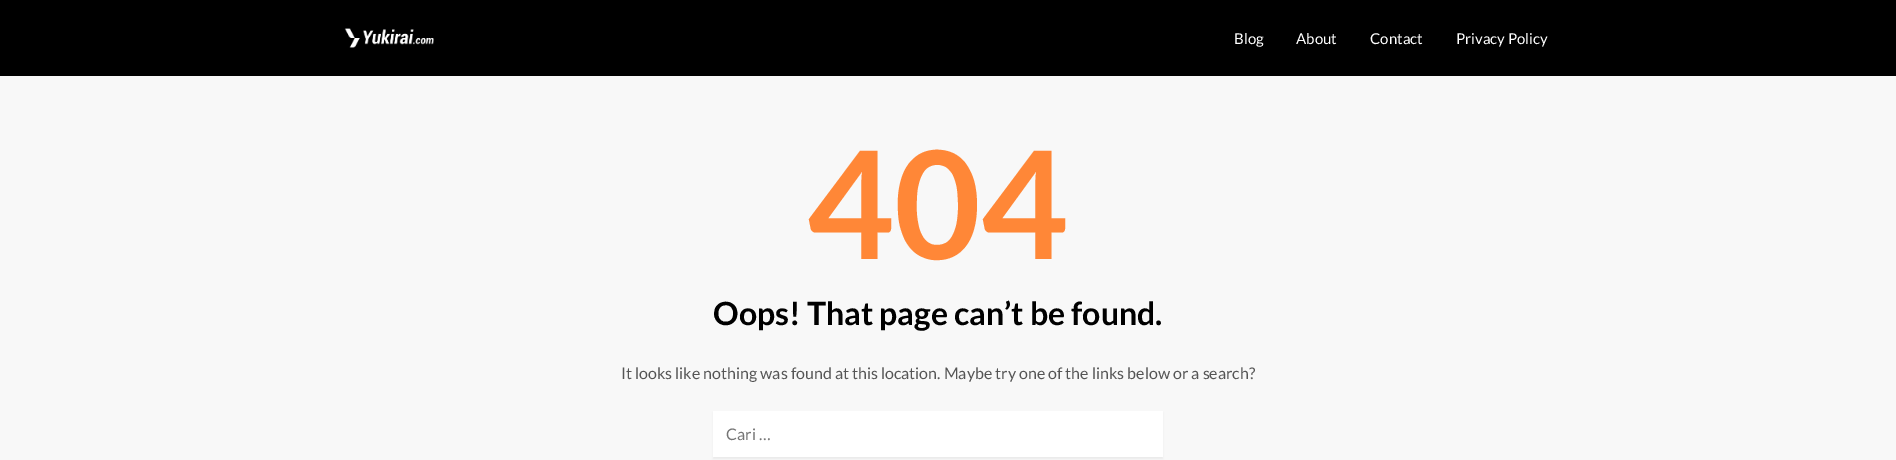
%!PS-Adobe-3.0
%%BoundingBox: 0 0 1896 460
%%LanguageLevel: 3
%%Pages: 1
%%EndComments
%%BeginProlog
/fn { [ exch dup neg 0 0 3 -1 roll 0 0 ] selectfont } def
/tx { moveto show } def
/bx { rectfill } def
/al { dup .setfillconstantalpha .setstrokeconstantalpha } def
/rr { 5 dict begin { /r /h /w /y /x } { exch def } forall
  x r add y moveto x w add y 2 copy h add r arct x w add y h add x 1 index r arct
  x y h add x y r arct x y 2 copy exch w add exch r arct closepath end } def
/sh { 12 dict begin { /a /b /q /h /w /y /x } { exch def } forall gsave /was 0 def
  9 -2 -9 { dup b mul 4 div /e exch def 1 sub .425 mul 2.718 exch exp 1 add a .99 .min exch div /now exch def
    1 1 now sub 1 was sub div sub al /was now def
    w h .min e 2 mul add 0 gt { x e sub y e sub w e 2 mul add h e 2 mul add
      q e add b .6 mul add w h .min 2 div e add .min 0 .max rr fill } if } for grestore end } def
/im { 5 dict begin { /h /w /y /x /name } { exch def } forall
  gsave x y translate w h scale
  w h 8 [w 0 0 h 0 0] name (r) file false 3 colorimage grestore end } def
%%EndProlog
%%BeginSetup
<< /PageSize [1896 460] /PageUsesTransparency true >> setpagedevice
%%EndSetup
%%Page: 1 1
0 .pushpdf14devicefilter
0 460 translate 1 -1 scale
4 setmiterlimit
0.973 setgray
0 0 1896 460 bx
0 setgray
0 0 1896 76 bx
(image0.raw) 344 28 90 20 im
/Lato-Regular 15 fn
1 setgray
(Blog) 1234 44 tx
(About) 1296 44 tx
(Contact) 1370 44 tx
(Privacy Policy) 1456 44 tx
/Lato-Bold 150 fn
1 0.529 0.216 setrgbcolor
(404) 807 259 tx
/Lato-Bold 32 fn
0 setgray
(Oops! That page can’t be found.) 713 325 tx
/Lato-Regular 16 fn
0.333 setgray
(It looks like nothing was found at this location. Maybe try one of the links below or a search?) 621 379 tx
0 setgray
713 413 450 46 0 1 0.06 sh
1 setgray
713 411 450 46 bx
0.459 setgray
(Cari …) 726 440 tx
.poppdf14devicefilter showpage
%%EOF
